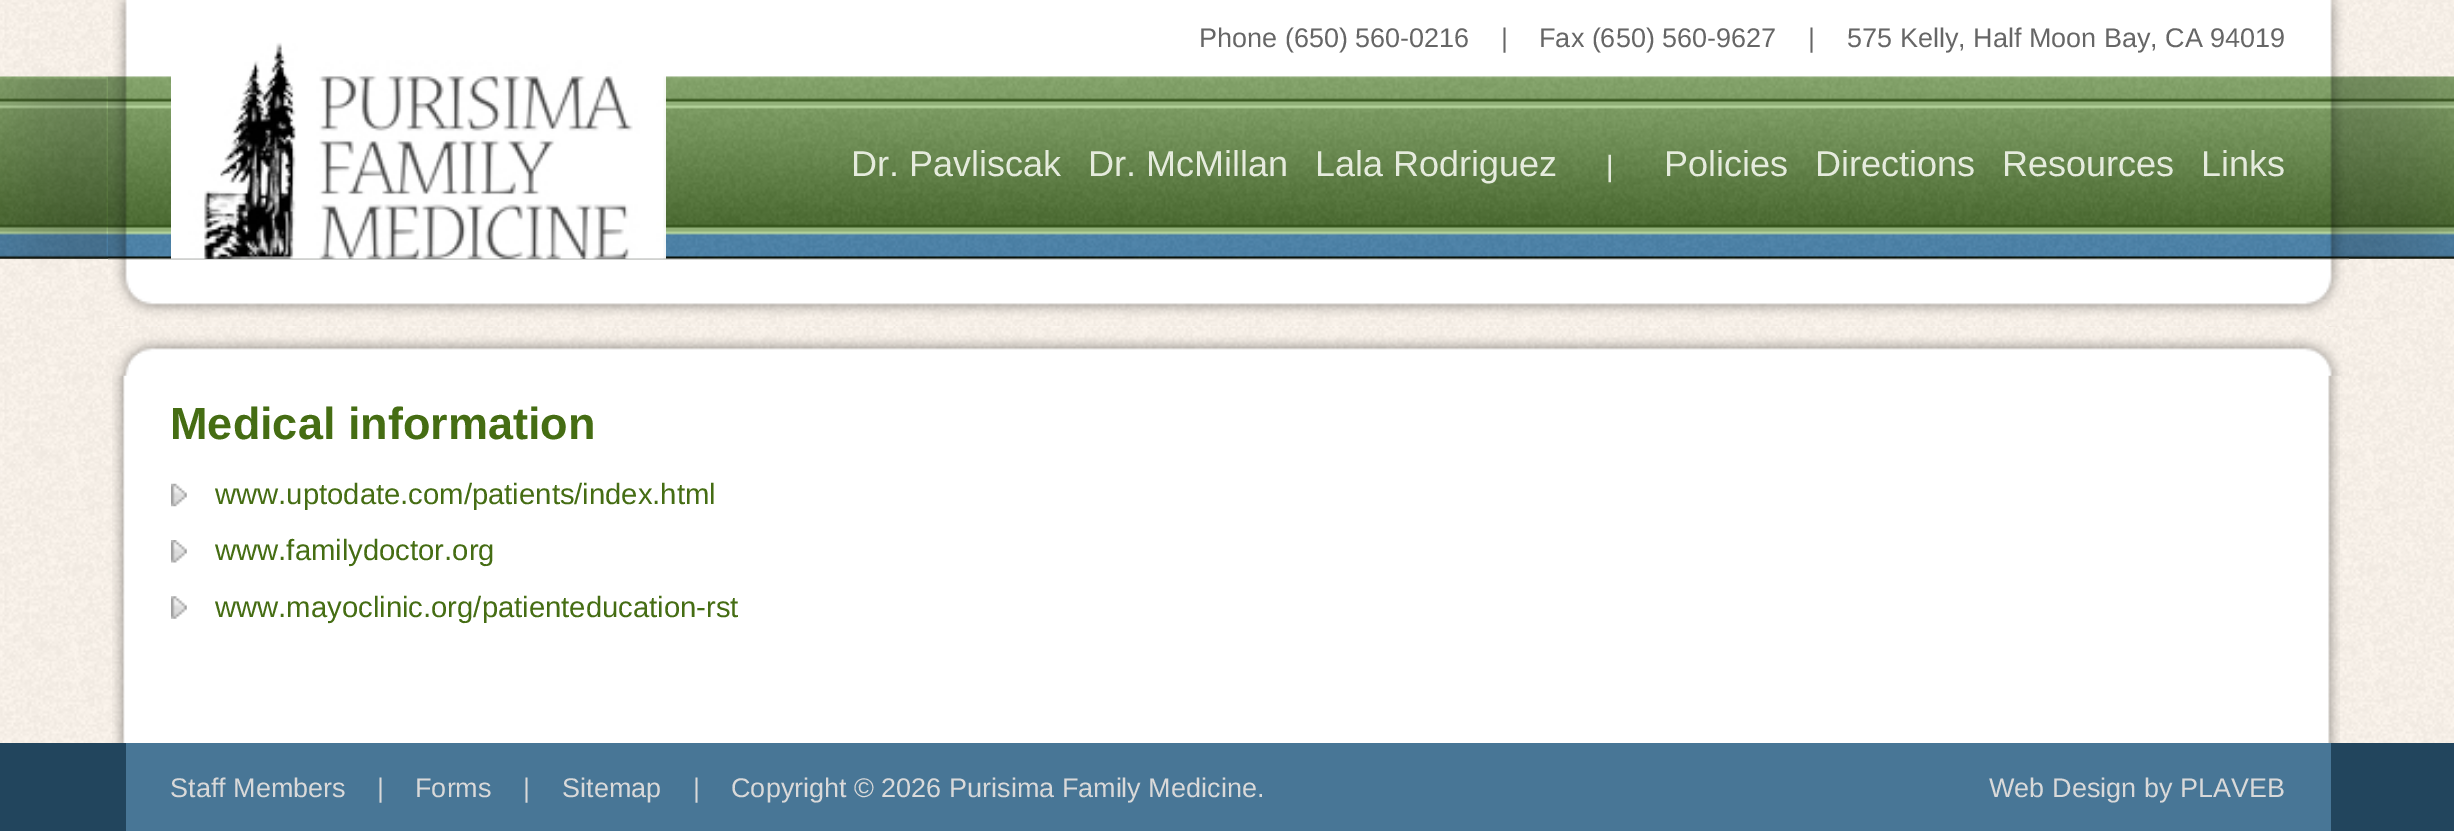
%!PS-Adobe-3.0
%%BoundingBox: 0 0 2454 831
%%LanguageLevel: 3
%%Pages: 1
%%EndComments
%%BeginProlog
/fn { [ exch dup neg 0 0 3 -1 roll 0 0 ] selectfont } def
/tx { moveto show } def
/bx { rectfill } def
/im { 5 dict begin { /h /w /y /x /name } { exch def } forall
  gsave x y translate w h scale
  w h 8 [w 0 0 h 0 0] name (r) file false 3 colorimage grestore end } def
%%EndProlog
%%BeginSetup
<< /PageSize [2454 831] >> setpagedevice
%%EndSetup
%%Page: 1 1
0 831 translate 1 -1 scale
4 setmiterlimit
1 setgray
0 0 2454 831 bx
(image0.raw) 0 0 2454 743 im
(image1.raw) 112 326 2228 417 im
(image2.raw) 0 76 2454 183 im
(image3.raw) 0 76 2454 184 im
(image4.raw) 108 0 2241 327 im
(image5.raw) 171 42 495 217 im
/LiberationSans-Regular 27 fn
0.4 setgray
(Phone \(650\) 560-0216) 1199 47 tx
(|) 1501 47 tx
(Fax \(650\) 560-9627) 1539 47 tx
(|) 1808 47 tx
(575 Kelly, Half Moon Bay, CA 94019) 1847 47 tx
/LiberationSans-Regular 36 fn
0.898 0.922 0.867 setrgbcolor
(Dr. Pavliscak) 851 176 tx
(Dr. McMillan) 1088 176 tx
(Lala Rodriguez) 1315 176 tx
/LiberationSans-Regular 29.25 fn
(|) 1606 176 tx
/LiberationSans-Regular 36 fn
(Policies) 1664 176 tx
(Directions) 1815 176 tx
(Resources) 2002 176 tx
(Links) 2201 176 tx
(image6.raw) 108 326 2241 50 im
/LiberationSans-Bold 45 fn
0.271 0.427 0.075 setrgbcolor
(Medical information) 170 439 tx
(image7.raw) 171 483 16 24 im
/LiberationSans-Regular 29.25 fn
(www.uptodate.com/patients/index.html) 215 504 tx
(image8.raw) 171 540 16 23 im
(www.familydoctor.org) 215 560 tx
(image9.raw) 171 596 16 23 im
(www.mayoclinic.org/patienteducation-rst) 215 617 tx
0.133 0.271 0.365 setrgbcolor
0 743 2454 88 bx
0.282 0.463 0.588 setrgbcolor
126 743 2205 88 bx
/LiberationSans-Regular 27 fn
0.851 setgray
(Staff Members) 170 797 tx
(|) 377 797 tx
(Forms) 415 797 tx
(|) 523 797 tx
(Sitemap) 562 797 tx
(|) 693 797 tx
(Copyright © 2026 Purisima Family Medicine.) 731 797 tx
(Web Design by PLAVEB) 1989 797 tx
showpage
%%EOF
